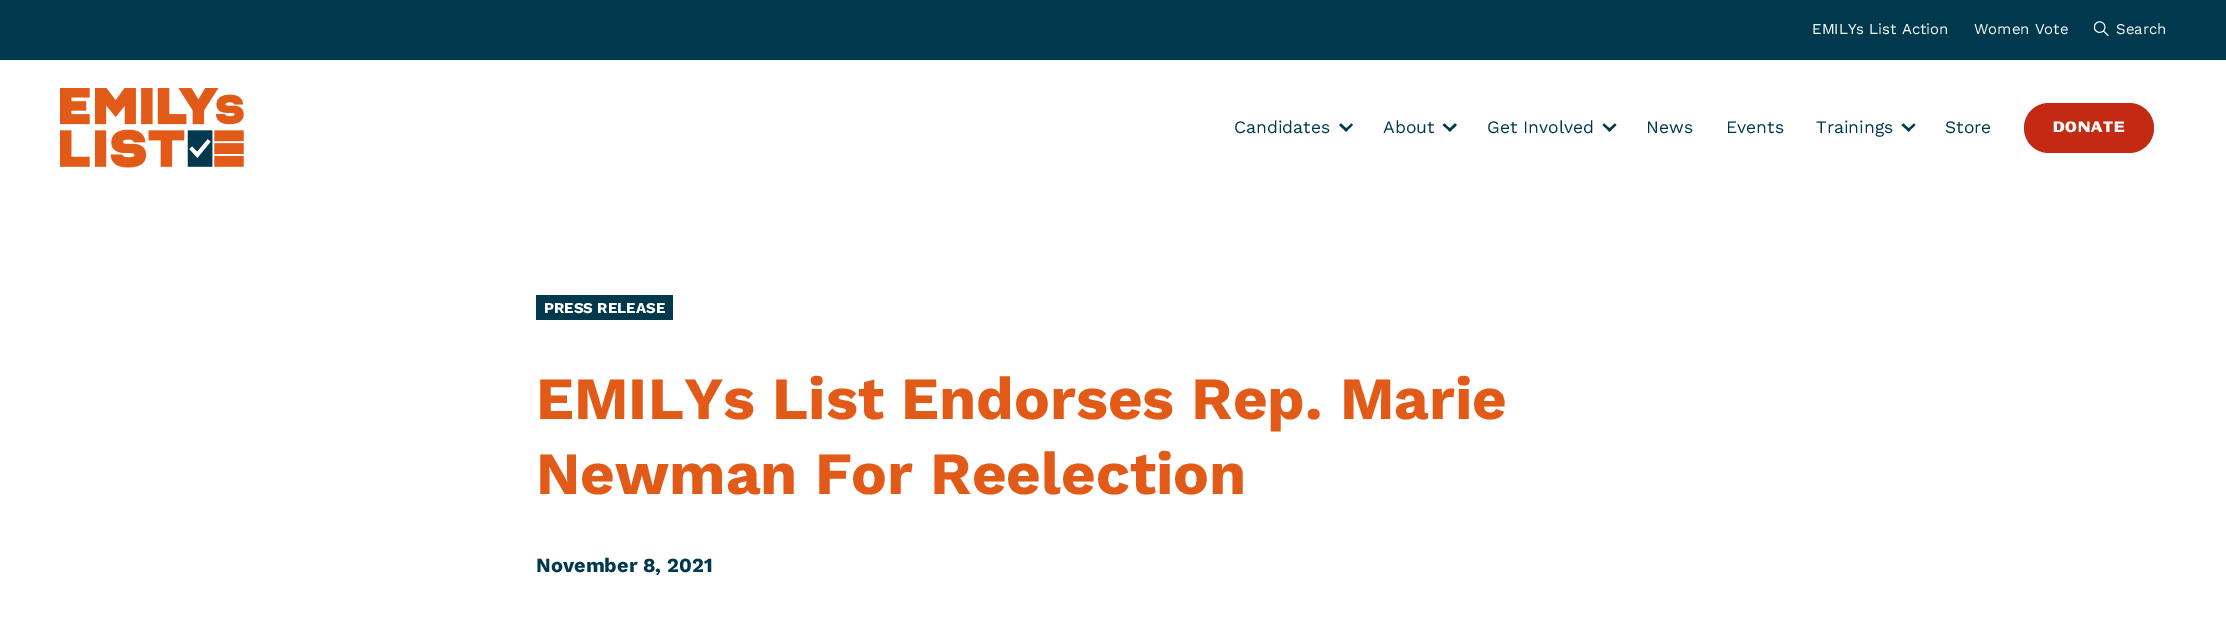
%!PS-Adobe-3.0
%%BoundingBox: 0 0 2226 638
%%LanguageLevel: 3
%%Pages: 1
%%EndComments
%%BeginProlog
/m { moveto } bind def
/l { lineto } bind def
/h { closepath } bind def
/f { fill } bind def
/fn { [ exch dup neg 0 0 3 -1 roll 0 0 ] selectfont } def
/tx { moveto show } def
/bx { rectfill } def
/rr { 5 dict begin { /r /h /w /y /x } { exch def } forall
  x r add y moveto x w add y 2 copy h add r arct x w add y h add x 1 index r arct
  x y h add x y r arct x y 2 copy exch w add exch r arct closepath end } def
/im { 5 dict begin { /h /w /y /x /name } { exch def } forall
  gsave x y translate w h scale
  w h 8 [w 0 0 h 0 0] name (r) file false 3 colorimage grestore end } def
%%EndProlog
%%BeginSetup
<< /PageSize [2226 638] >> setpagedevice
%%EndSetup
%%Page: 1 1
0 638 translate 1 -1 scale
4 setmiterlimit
1 setgray
0 0 2226 638 bx
0 0.224 0.302 setrgbcolor
0 0 2226 60 bx
/WorkSans-Regular 15 fn
1 setgray
(EMILYs List Action) 1812 34 tx
(Women Vote) 1974 34 tx
(image0.raw) 2094 21 15 15 im
(Search) 2116 34 tx
(image1.raw) 60 88 184 80 im
/WorkSans-Regular 17.5 fn
0 0.224 0.302 setrgbcolor
(Candidates) 1234 133 tx
1351.5 123.5 m 1353 125 l 1346 131.5 l 1344.5 130 l h f
1341 123.5 m 1348 130 l 1346 131.5 l 1339 125 l h f
(About) 1383 133 tx
1455 123.5 m 1457 125 l 1450 131.5 l 1448 130 l h f
1444.5 123.5 m 1451.5 130 l 1450 131.5 l 1442.5 125 l h f
(Get Involved) 1487 133 tx
1615 123.5 m 1616.5 125 l 1609.5 131.5 l 1607.5 130 l h f
1604 123.5 m 1611.5 130 l 1609.5 131.5 l 1602.5 125 l h f
(News) 1646 133 tx
(Events) 1726 133 tx
(Trainings) 1816 133 tx
1914 123.5 m 1915.5 125 l 1908.5 131.5 l 1907 130 l h f
1903.5 123.5 m 1910.5 130 l 1908.5 131.5 l 1901.5 125 l h f
(Store) 1945 133 tx
0.765 0.165 0.067 setrgbcolor
2024 103 130 50 25 rr f
/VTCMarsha-Bold 15 fn
1 setgray
2053 132 m 0.75 0 (DONATE) ashow
0 0.224 0.302 setrgbcolor
536 295 137 25 bx
/WorkSans-Bold 15 fn
1 setgray
(PRESS RELEASE) 544 313 tx
/WorkSans-Bold 60 fn
0.886 0.353 0.09 setrgbcolor
(EMILYs List Endorses Rep. Marie) 536 419 tx
(Newman For Reelection) 536 494 tx
/WorkSans-Bold 20 fn
0 0.224 0.302 setrgbcolor
(November 8, 2021) 536 572 tx
showpage
%%EOF
